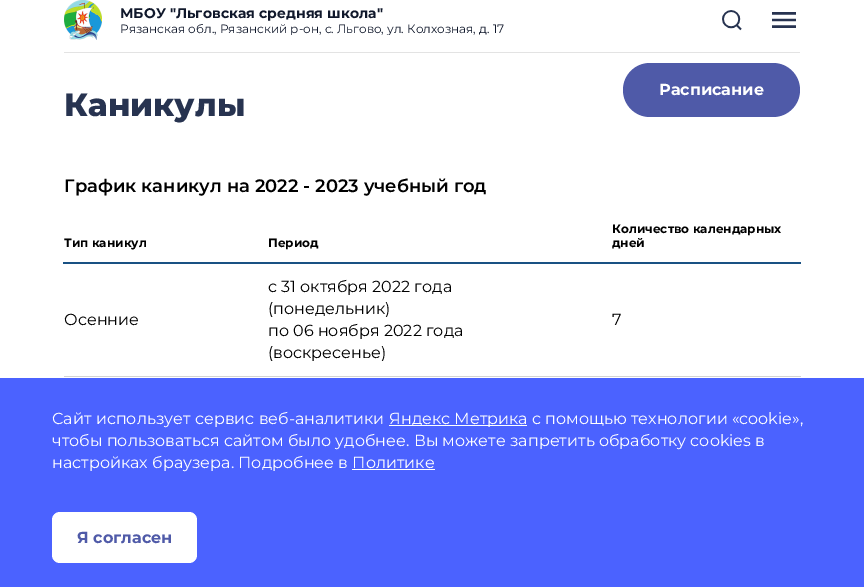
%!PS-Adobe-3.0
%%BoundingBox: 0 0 864 587
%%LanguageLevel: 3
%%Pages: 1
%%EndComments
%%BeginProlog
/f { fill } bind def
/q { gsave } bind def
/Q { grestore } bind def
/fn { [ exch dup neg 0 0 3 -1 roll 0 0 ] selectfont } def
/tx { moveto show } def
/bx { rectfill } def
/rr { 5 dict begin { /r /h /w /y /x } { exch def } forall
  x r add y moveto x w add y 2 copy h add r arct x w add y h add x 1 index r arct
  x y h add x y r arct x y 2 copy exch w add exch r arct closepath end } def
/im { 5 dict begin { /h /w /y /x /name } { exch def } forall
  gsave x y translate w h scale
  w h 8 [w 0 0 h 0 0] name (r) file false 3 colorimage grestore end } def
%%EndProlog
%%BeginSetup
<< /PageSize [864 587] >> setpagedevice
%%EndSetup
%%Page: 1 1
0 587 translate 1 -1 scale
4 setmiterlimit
1 setgray
0 0 864 587 bx
0.89 setgray
64 52 736 1 bx
(image0.raw) 64 0 38 40 im
/Montserrat-Bold 14 fn
0.063 0.094 0.169 setrgbcolor
(МБОУ "Льговская средняя школа") 120 18 tx
q
120 5 384 30 rectclip
/Montserrat-Regular 12 fn
(Рязанская обл., Рязанский р-он, с. Льгово, ул. Колхозная, д. 17) 120 33 tx
Q
(image1.raw) 722 10 20 21 im
(image2.raw) 772 12 24 16 im
0.31 0.353 0.659 setrgbcolor
623 63 177 54 27 rr f
/Montserrat-Bold 16 fn
1 setgray
(Расписание) 659 95 tx
/Montserrat-SemiBold 18 fn
0 setgray
(График каникул на 2022 - 2023 учебный год) 64 192 tx
0.098 0.318 0.514 setrgbcolor
63 262 738 2 bx
/Montserrat-Bold 12 fn
0 setgray
(Тип каникул) 64 247 tx
(Период) 268 247 tx
(Количество календарных) 612 233 tx
(дней) 612 247 tx
0.827 setgray
64 376 737 1 bx
/Montserrat-Regular 16 fn
0 setgray
(Осенние) 64 325 tx
(с 31 октября 2022 года) 268 292 tx
(\(понедельник\)) 268 314 tx
(по 06 ноября 2022 года) 268 336 tx
(\(воскресенье\)) 268 358 tx
(7) 612 325 tx
/Montserrat-ExtraBold 32 fn
0.153 0.2 0.314 setrgbcolor
(Каникулы) 64 116 tx
0.294 0.384 1 setrgbcolor
0 378 864 209 bx
/Montserrat-Regular 16 fn
1 setgray
(Сайт использует сервис веб-аналитики) 52 424 tx
389 425 138 1 bx
(Яндекс Метрика с помощью технологии «cookie»,) 389 424 tx
(чтобы пользоваться сайтом было удобнее. Вы можете запретить обработку cookies в) 52 446 tx
(настройках браузера. Подробнее в Политике) 52 468 tx
352 469 83 1 bx
52 512 145 51 8 rr f
/Montserrat-Bold 16 fn
0.31 0.353 0.659 setrgbcolor
(Я согласен) 77 543 tx
showpage
%%EOF
